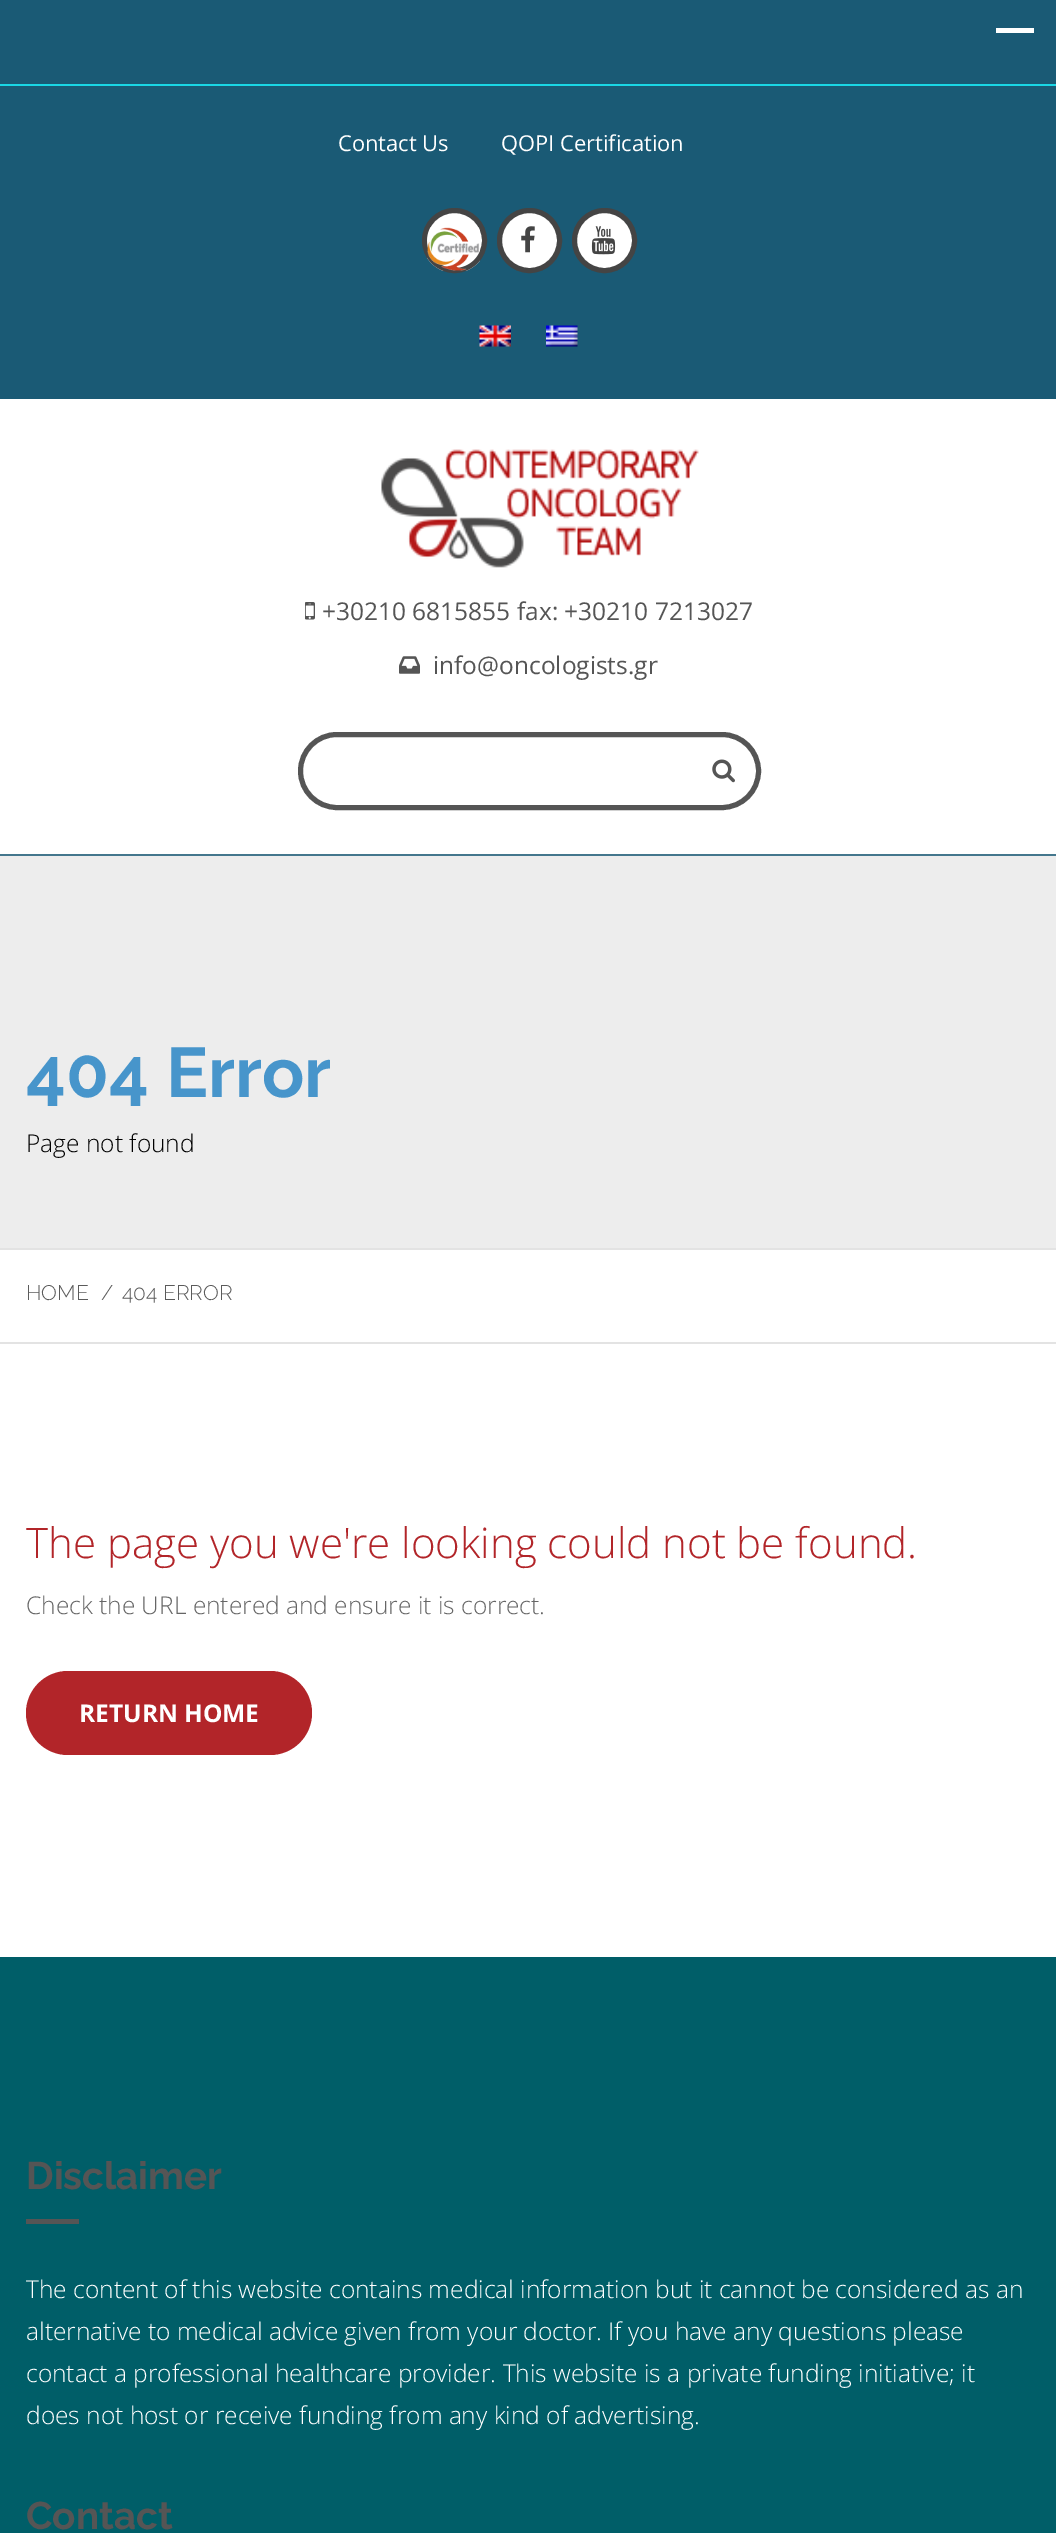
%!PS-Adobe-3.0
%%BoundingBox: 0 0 1056 2533
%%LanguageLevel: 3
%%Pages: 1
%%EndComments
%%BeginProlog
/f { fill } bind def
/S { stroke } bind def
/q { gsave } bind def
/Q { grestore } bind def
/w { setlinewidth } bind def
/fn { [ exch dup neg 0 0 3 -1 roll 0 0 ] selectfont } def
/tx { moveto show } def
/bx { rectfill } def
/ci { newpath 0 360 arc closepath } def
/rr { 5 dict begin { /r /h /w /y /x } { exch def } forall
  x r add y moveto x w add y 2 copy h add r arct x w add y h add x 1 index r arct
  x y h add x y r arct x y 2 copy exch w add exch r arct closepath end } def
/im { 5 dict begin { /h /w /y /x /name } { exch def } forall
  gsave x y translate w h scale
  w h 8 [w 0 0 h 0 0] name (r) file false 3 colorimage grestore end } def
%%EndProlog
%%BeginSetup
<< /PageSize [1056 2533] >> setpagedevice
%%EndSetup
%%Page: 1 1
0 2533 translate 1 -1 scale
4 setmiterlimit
1 setgray
0 0 1056 2533 bx
0.102 0.353 0.459 setrgbcolor
0 0 1056 399 bx
1 setgray
996 28 38 5 bx
0.102 0.843 0.902 setrgbcolor
0 84 1056 2 bx
/OpenSans-Regular 21.9 fn
1 setgray
(Contact Us) 338 151 tx
(QOPI Certification) 501 151 tx
454.5 240.5 30 ci q f Q
0.267 setgray
5 w
S
(image0.raw) 427 227 53 44 im
1 setgray
529.5 240.5 30 ci q f Q
0.267 setgray
S
(image1.raw) 521 226 14 27 im
1 setgray
604.5 240.5 30 ci q f Q
0.267 setgray
S
(image2.raw) 591 226 25 29 im
(image3.raw) 479 325 32 22 im
(image4.raw) 546 325 32 22 im
(image5.raw) 381 449 318 119 im
(image6.raw) 305 602 10 18 im
/OpenSans-Regular 24.5 fn
0.333 setgray
(+30210 6815855 fax: +30210 7213027) 322 620 tx
(image7.raw) 399 656 21 18 im
(info@oncologists.gr) 433 674 tx
300.5 734.5 458 73 36.5 rr S
(image8.raw) 712 759 23 24 im
0.267 0.467 0.553 setrgbcolor
0 854 1056 2 bx
0.929 setgray
0 856 1056 392 bx
/Raleway-Bold 70 fn
0.278 0.584 0.796 setrgbcolor
(404 Error) 26 1097 tx
/OpenSans-Light 24.5 fn
0 setgray
(Page not found) 26 1152 tx
0.89 setgray
0 1248 1056 2 bx
0 1342 1056 2 bx
/Raleway-Light 21 fn
0.357 setgray
(HOME) 26 1300 tx
(/) 101 1300 tx
(404 ERROR) 122 1300 tx
/OpenSans-Light 42 fn
0.698 0.145 0.161 setrgbcolor
(The page you we're looking could not be found.) 26 1558 tx
/OpenSans-Light 24.5 fn
0.4 setgray
(Check the URL entered and ensure it is correct.) 26 1614 tx
0.698 0.145 0.161 setrgbcolor
26 1671 286 84 42 rr f
/OpenSans-Bold 24.5 fn
1 setgray
(RETURN HOME) 79 1722 tx
0 0.369 0.408 setrgbcolor
0 1957 1056 576 bx
/Raleway-Bold 38.5 fn
0.333 setgray
(Disclaimer) 26 2189 tx
26 2219 53 5 bx
/OpenSans-Light 24.5 fn
1 setgray
(The content of this website contains medical information but it cannot be considered as an) 26 2298 tx
(alternative to medical advice given from your doctor. If you have any questions please) 26 2340 tx
(contact a professional healthcare provider. This website is a private funding initiative; it) 26 2382 tx
(does not host or receive funding from any kind of advertising.) 26 2424 tx
/Raleway-Bold 38.5 fn
0.333 setgray
(Contact) 26 2529 tx
showpage
%%EOF
